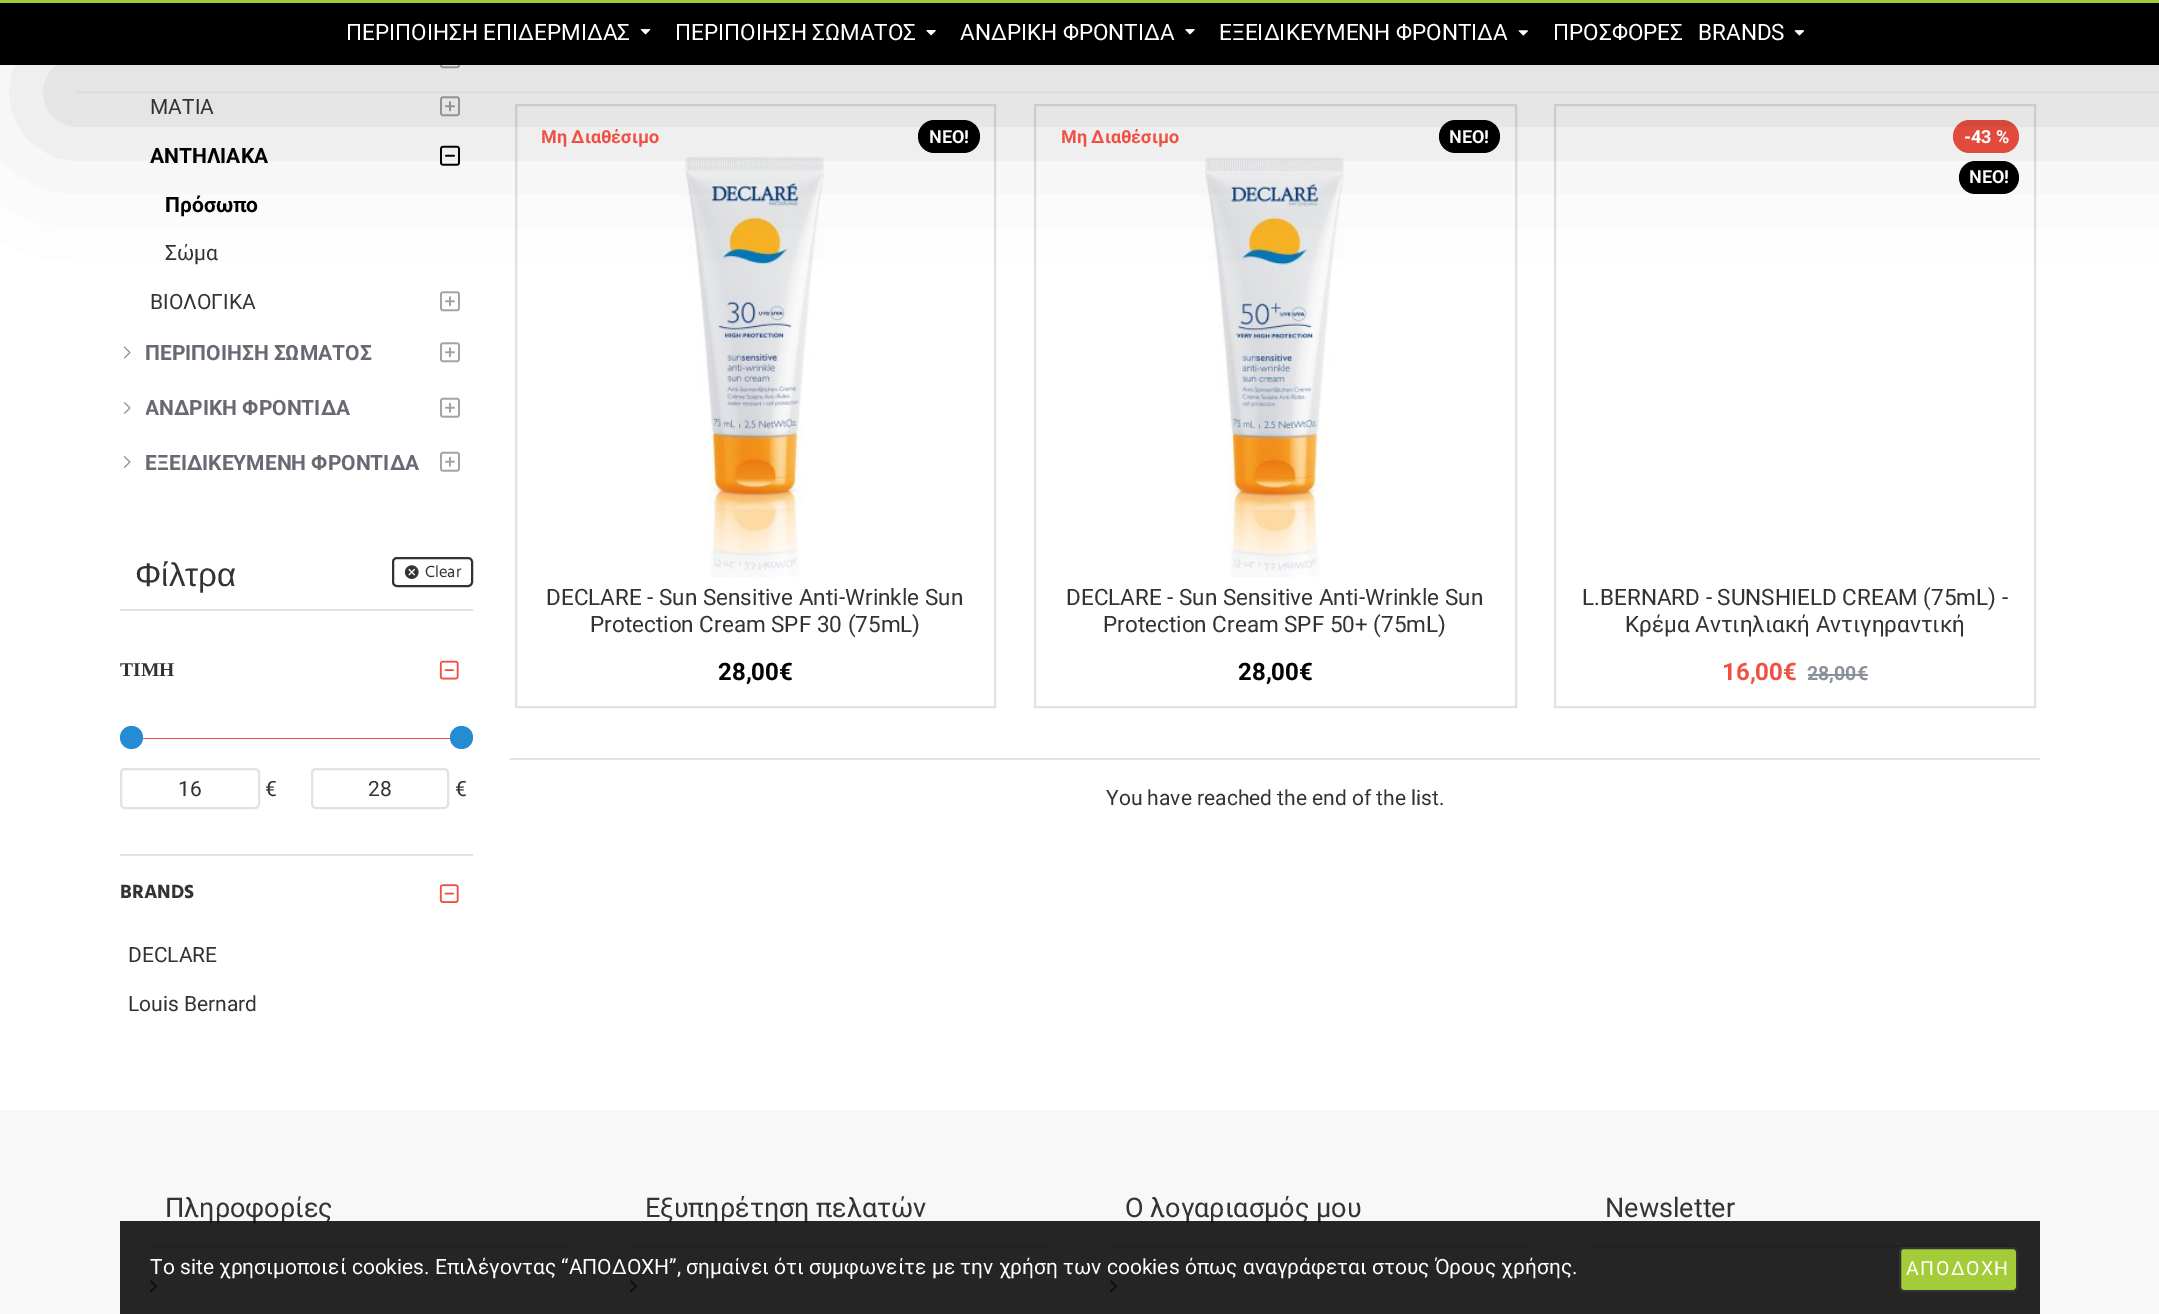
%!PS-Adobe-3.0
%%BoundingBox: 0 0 2159 1314
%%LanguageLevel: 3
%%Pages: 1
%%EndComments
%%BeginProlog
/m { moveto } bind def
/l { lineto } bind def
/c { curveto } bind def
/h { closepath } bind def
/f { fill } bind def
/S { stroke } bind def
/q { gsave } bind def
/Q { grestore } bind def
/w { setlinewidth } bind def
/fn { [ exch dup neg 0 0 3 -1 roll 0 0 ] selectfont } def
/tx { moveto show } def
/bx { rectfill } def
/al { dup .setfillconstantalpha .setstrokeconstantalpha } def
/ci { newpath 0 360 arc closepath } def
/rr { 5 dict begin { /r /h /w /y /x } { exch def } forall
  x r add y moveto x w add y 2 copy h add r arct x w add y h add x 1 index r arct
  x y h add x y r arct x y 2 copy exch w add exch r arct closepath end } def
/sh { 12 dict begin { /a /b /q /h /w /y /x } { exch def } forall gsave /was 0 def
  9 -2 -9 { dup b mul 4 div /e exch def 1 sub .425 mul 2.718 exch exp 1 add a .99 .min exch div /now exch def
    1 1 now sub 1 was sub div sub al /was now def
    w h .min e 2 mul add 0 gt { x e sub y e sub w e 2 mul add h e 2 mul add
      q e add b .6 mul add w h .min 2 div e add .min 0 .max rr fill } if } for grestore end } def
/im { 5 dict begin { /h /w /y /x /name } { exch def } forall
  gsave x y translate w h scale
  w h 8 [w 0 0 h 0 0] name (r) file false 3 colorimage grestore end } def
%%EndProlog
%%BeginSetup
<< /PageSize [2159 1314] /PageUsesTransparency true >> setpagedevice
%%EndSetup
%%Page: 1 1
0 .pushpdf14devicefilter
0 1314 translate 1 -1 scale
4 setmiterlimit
1 setgray
0 0 2159 1314 bx
(image5.raw) 440 65 20 4 im
(image6.raw) 440 96 20 21 im
(image7.raw) 440 145 20 21 im
(image6.raw) 440 291 20 21 im
0.886 setgray
2 w
516 105 479 602 rectstroke
0 setgray
918 120 62 33 16.5 rr f
(image14.raw) 685 157 139 420 im
0.886 setgray
1035 105 481 602 rectstroke
0 setgray
1439 120 61 33 16.5 rr f
(image15.raw) 1205 157 139 420 im
0.886 setgray
1555 105 480 602 rectstroke
0.937 0.314 0.259 setrgbcolor
1953 120 66 33 16.5 rr f
0 setgray
1959 161 60 33 16.5 rr f
60 75 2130 35 0 67.5 0.2 sh
0 3 2159 62 bx
0.643 0.796 0.22 setrgbcolor
0 0 2159 3 bx
/Roboto-Regular 22.5 fn
1 setgray
(ΠΕΡΙΠΟΙΗΣΗ ΕΠΙΔΕΡΜΙΔΑΣ) 346 40 tx
(image0.raw) 640 29 11 6 im
(ΠΕΡΙΠΟΙΗΣΗ ΣΩΜΑΤΟΣ) 675 40 tx
(image1.raw) 926 30 10 6 im
(ΑΝΔΡΙΚΗ ΦΡΟΝΤΙΔΑ) 960 40 tx
(image2.raw) 1185 29 10 6 im
(ΕΞΕΙΔΙΚΕΥΜΕΝΗ ΦΡΟΝΤΙΔΑ) 1219 40 tx
(image3.raw) 1518 30 10 6 im
(ΠΡΟΣΦΟΡΕΣ) 1553 40 tx
(BRANDS) 1698 40 tx
(image4.raw) 1794 30 11 6 im
/Roboto-Regular 21 fn
0.2 setgray
(ΜΑΤΙΑ) 150 114 tx
/Roboto-Bold 21 fn
0 setgray
(ΑΝΤΗΛΙΑΚΑ) 150 163 tx
(Πρόσωπο) 165 212 tx
/Roboto-Regular 21 fn
0.2 setgray
(Σώμα) 165 260 tx
(ΒΙΟΛΟΓΙΚΑ) 150 309 tx
(image8.raw) 123 346 8 13 im
/Roboto-Bold 21 fn
0.412 0.412 0.451 setrgbcolor
(ΠΕΡΙΠΟΙΗΣΗ ΣΩΜΑΤΟΣ) 145 360 tx
(image6.raw) 440 342 20 21 im
(image9.raw) 123 402 8 12 im
q
146 392 204 33 rectclip
(ΑΝΔΡΙΚΗ ΦΡΟΝΤΙΔΑ) 145 415 tx
Q
(image10.raw) 440 397 20 21 im
(image9.raw) 123 456 8 12 im
(ΕΞΕΙΔΙΚΕΥΜΕΝΗ ΦΡΟΝΤΙΔΑ) 145 470 tx
(image10.raw) 440 451 20 21 im
0.886 setgray
120 609 353 2 bx
/LiberationSans-Regular 33 fn
0.2 setgray
(Φίλτρα) 135 586 tx
393 558 79 28 4 rr S
(image11.raw) 404 565 15 14 im
/HindMadurai-Regular 16.5 fn
(Clear) 425 577 tx
/LiberationSerif-Bold 19.5 fn
(ΤΙΜΗ) 120 676 tx
(image12.raw) 439 660 20 20 im
0.937 0.314 0.259 setrgbcolor
128 738 m 467 738 l 472 738 l 475 739 465 739 465 739 c 128 739 l 120 739 l 122 738 l h f
0.137 0.549 0.824 setrgbcolor
131.5 737.5 11.5 ci f
461.5 737.5 11.5 ci f
0.886 setgray
121 769 138 39 4 rr S
/Roboto-Regular 21 fn
0.2 setgray
(16) 178 796 tx
(€) 265 796 tx
0.886 setgray
312 769 136 39 4 rr S
0.2 setgray
(28) 368 796 tx
(€) 455 796 tx
0.886 setgray
120 854 353 2 bx
/HindMadurai-Bold 19.5 fn
0.2 setgray
(BRANDS) 120 898 tx
(image13.raw) 439 884 20 19 im
/Roboto-Regular 21 fn
(DECLARE) 128 962 tx
(Louis Bernard) 128 1011 tx
/Roboto-Bold 18 fn
0.937 0.314 0.259 setrgbcolor
(Μη Διαθέσιμο) 541 143 tx
1 setgray
(ΝΕΟ!) 929 143 tx
/Roboto-Regular 22.5 fn
0.2 setgray
(DECLARE - Sun Sensitive Anti-Wrinkle Sun) 546 605 tx
(Protection Cream SPF 30 \(75mL\)) 590 632 tx
/Roboto-Bold 24 fn
0 setgray
(28,00€) 718 680 tx
/Roboto-Bold 18 fn
0.937 0.314 0.259 setrgbcolor
(Μη Διαθέσιμο) 1061 143 tx
1 setgray
(ΝΕΟ!) 1449 143 tx
/Roboto-Regular 22.5 fn
0.2 setgray
(DECLARE - Sun Sensitive Anti-Wrinkle Sun) 1066 605 tx
(Protection Cream SPF 50+ \(75mL\)) 1103 632 tx
/Roboto-Bold 24 fn
0 setgray
(28,00€) 1238 680 tx
/Roboto-Bold 18 fn
1 setgray
(-43 %) 1964 143 tx
(ΝΕΟ!) 1969 183 tx
/Roboto-Regular 22.5 fn
0.2 setgray
(L.BERNARD - SUNSHIELD CREAM \(75mL\) -) 1582 605 tx
(Κρέμα Αντιηλιακή Αντιγηραντική) 1625 632 tx
/Roboto-Bold 24 fn
0.937 0.314 0.259 setrgbcolor
(16,00€) 1722 680 tx
/Roboto-Bold 19.5 fn
0.545 0.569 0.596 setrgbcolor
(28,00€) 1807 680 tx
1808 674 60 2 bx
0.886 setgray
510 758 1530 2 bx
/Roboto-Regular 21 fn
0.2 setgray
(You have reached the end of the list.) 1106 805 tx
0.973 setgray
0 1110 2159 204 bx
0.886 setgray
150 1245 420 2 bx
/Roboto-Regular 27 fn
0.2 setgray
(Πληροφορίες) 165 1217 tx
(image16.raw) 150 1280 7 13 im
0.886 setgray
630 1245 420 2 bx
0.2 setgray
(Εξυπηρέτηση πελατών) 645 1217 tx
(image16.raw) 630 1280 7 13 im
0.886 setgray
1110 1245 420 2 bx
0.2 setgray
(Ο λογαριασμός μου) 1125 1217 tx
(image16.raw) 1110 1280 7 13 im
0.886 setgray
1590 1245 420 2 bx
0.2 setgray
(Newsletter) 1605 1217 tx
0.85 al
0 setgray
120 1221 1920 93 bx
/Roboto-Regular 21 fn
1 al
1 setgray
(To site χρησιμοποιεί cookies. Επιλέγοντας “ΑΠΟΔΟΧΗ”, σημαίνει ότι συμφωνείτε με την χρήση των cookies όπως αναγράφεται στους Όρους χρήσης.) 150 1274 tx
0.643 0.796 0.22 setrgbcolor
1900 1248 117 43 4 rr q f Q
0.2 setgray
S
/Roboto-Regular 19.5 fn
1 setgray
1906 1275 m 1.5 0 (ΑΠΟΔΟΧΗ) ashow
.poppdf14devicefilter showpage
%%EOF
